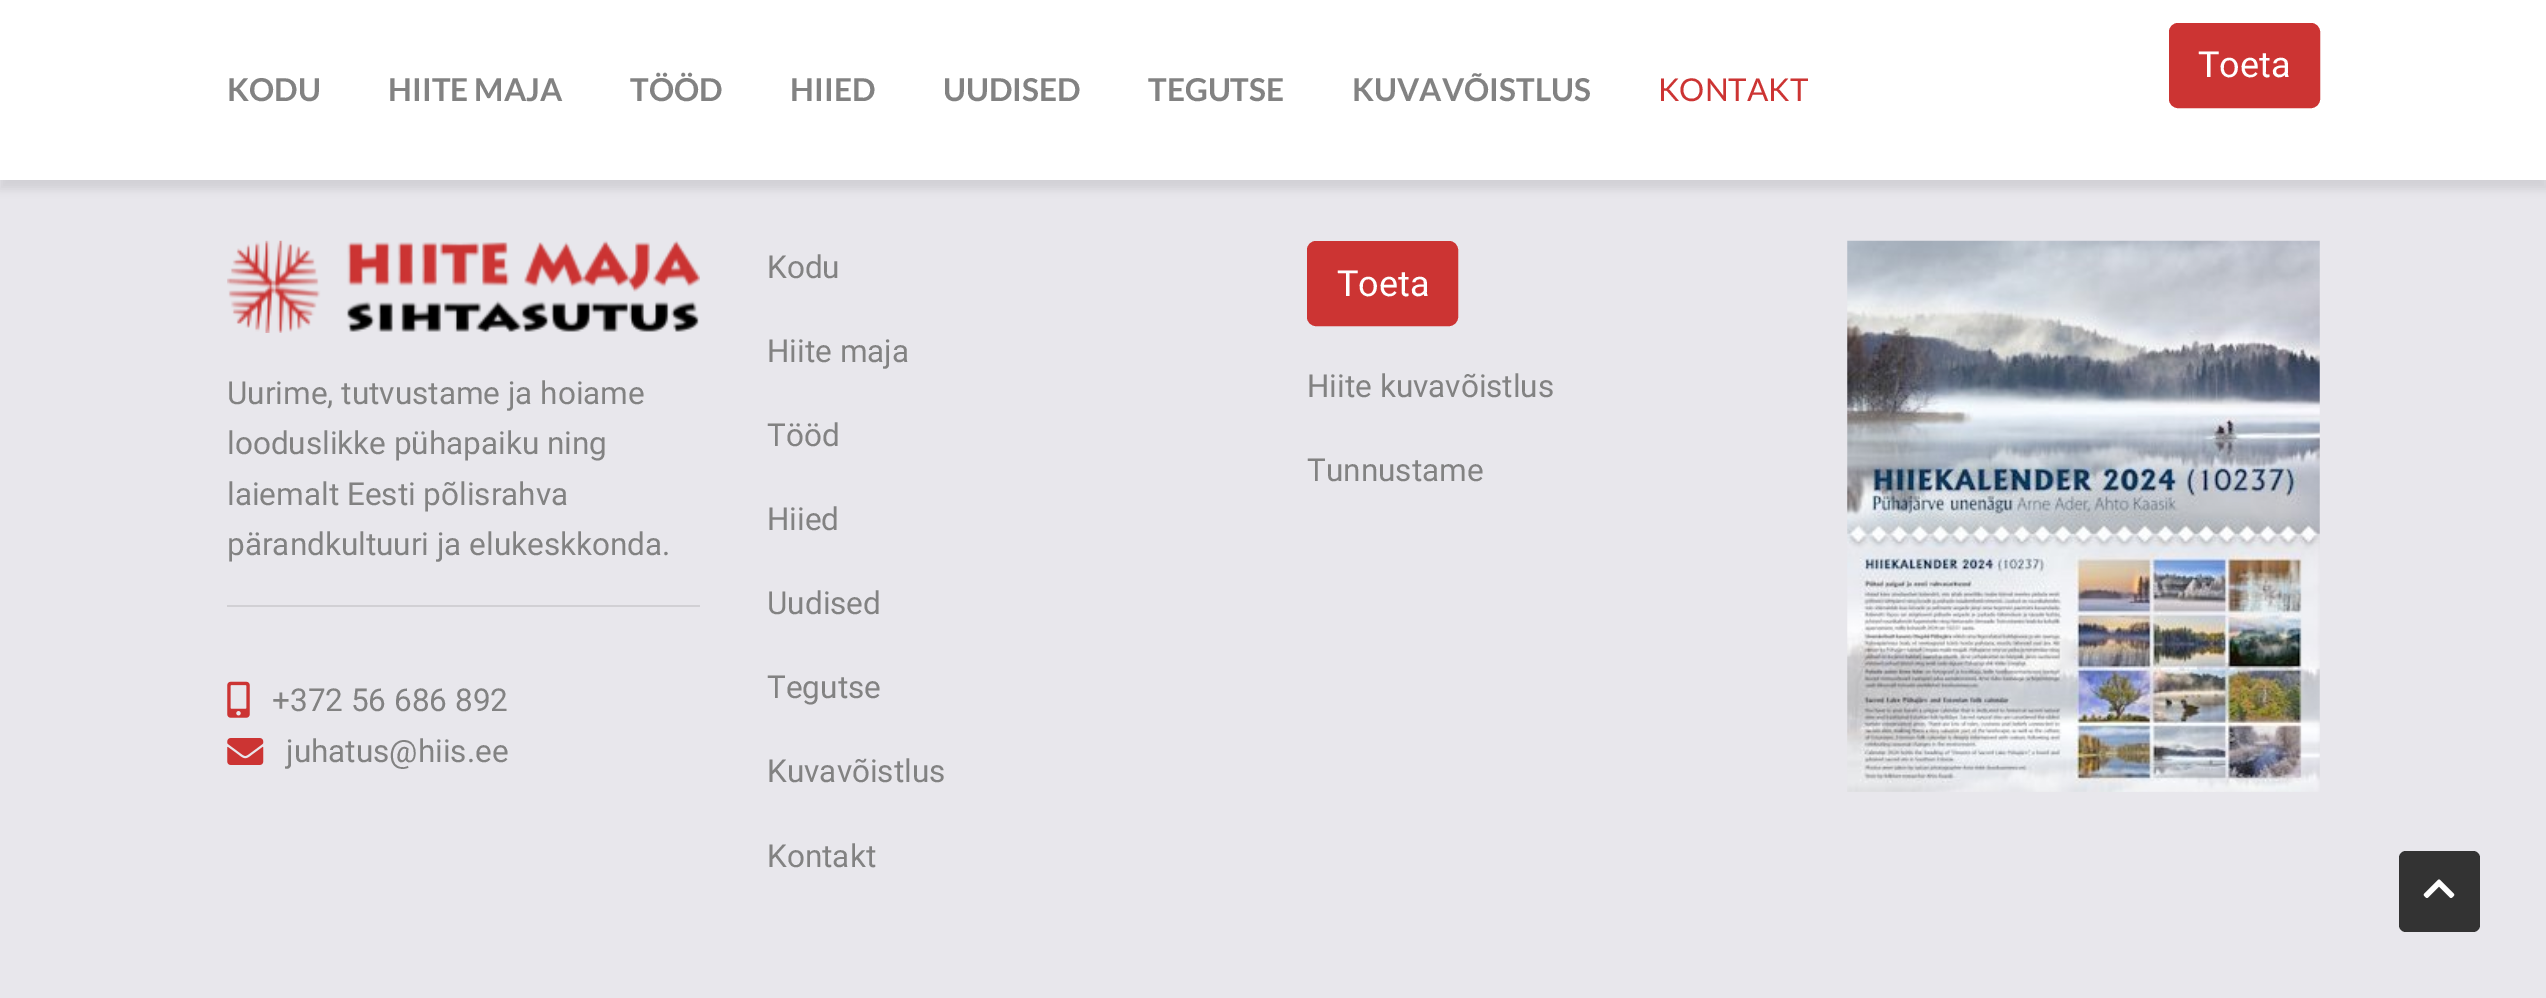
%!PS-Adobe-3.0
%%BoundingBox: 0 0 2546 998
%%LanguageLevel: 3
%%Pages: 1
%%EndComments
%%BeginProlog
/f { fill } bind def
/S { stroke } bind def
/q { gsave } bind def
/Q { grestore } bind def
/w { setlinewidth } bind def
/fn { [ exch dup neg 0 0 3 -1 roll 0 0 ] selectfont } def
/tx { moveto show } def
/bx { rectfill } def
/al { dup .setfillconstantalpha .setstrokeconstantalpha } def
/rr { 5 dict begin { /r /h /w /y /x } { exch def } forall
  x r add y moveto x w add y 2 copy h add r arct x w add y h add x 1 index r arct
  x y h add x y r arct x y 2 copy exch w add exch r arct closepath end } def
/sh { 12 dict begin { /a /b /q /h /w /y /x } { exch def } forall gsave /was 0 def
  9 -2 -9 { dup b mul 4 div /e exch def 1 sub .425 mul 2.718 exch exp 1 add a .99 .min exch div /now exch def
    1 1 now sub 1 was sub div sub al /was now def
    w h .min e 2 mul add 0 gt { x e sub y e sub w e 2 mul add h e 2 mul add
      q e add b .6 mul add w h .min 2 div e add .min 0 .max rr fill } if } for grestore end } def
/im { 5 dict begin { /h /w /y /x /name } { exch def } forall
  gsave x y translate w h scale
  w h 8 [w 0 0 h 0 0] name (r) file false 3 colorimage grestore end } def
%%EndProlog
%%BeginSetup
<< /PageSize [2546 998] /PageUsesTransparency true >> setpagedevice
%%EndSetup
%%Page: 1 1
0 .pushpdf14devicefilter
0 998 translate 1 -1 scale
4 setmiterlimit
0.91 0.906 0.925 setrgbcolor
0 0 2546 998 bx
0 setgray
0 9 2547 180 0 4.5 0.1 sh
1 setgray
0 0 2546 180 bx
0.8 0.204 0.2 setrgbcolor
2170 24 149 83 8 rr q f Q
2 w
S
/Roboto-Regular 36 fn
1 setgray
(Toeta) 2198 77 tx
/Lato-Bold 31.5 fn
0.51 setgray
(KODU) 227 101 tx
(HIITE MAJA) 388 101 tx
(TÖÖD) 630 101 tx
(HIIED) 790 101 tx
(UUDISED) 943 101 tx
(TEGUTSE) 1148 101 tx
(KUVAVÕISTLUS) 1352 101 tx
/Lato-Regular 31.5 fn
0.8 0.204 0.2 setrgbcolor
(KONTAKT) 1658 101 tx
(image0.raw) 227 240 473 93 im
/Roboto-Regular 31.5 fn
0.51 setgray
(Uurime, tutvustame ja hoiame) 227 404 tx
(looduslikke pühapaiku ning) 227 454 tx
(laiemalt Eesti põlisrahva) 227 505 tx
(pärandkultuuri ja elukeskkonda.) 227 555 tx
0.82 0.816 0.831 setrgbcolor
227 605 473 2 bx
(image1.raw) 227 681 23 37 im
0.51 setgray
(+372 56 686 892) 272 711 tx
(image2.raw) 227 738 37 27 im
(juhatus@hiis.ee) 286 762 tx
(Kodu) 767 278 tx
(Hiite maja) 767 362 tx
(Tööd) 767 446 tx
(Hiied) 767 530 tx
(Uudised) 767 614 tx
(Tegutse) 767 698 tx
(Kuvavõistlus) 767 782 tx
(Kontakt) 767 867 tx
0.8 0.204 0.2 setrgbcolor
1308 242 149 83 8 rr q f Q
S
/Roboto-Regular 36 fn
1 setgray
(Toeta) 1337 296 tx
/Roboto-Regular 31.5 fn
0.51 setgray
(Hiite kuvavõistlus) 1307 397 tx
(Tunnustame) 1307 481 tx
(image3.raw) 1847 240 473 552 im
0.2 setgray
2399 851 81 81 7 rr f
(image4.raw) 2423 879 32 19 im
.poppdf14devicefilter showpage
%%EOF
